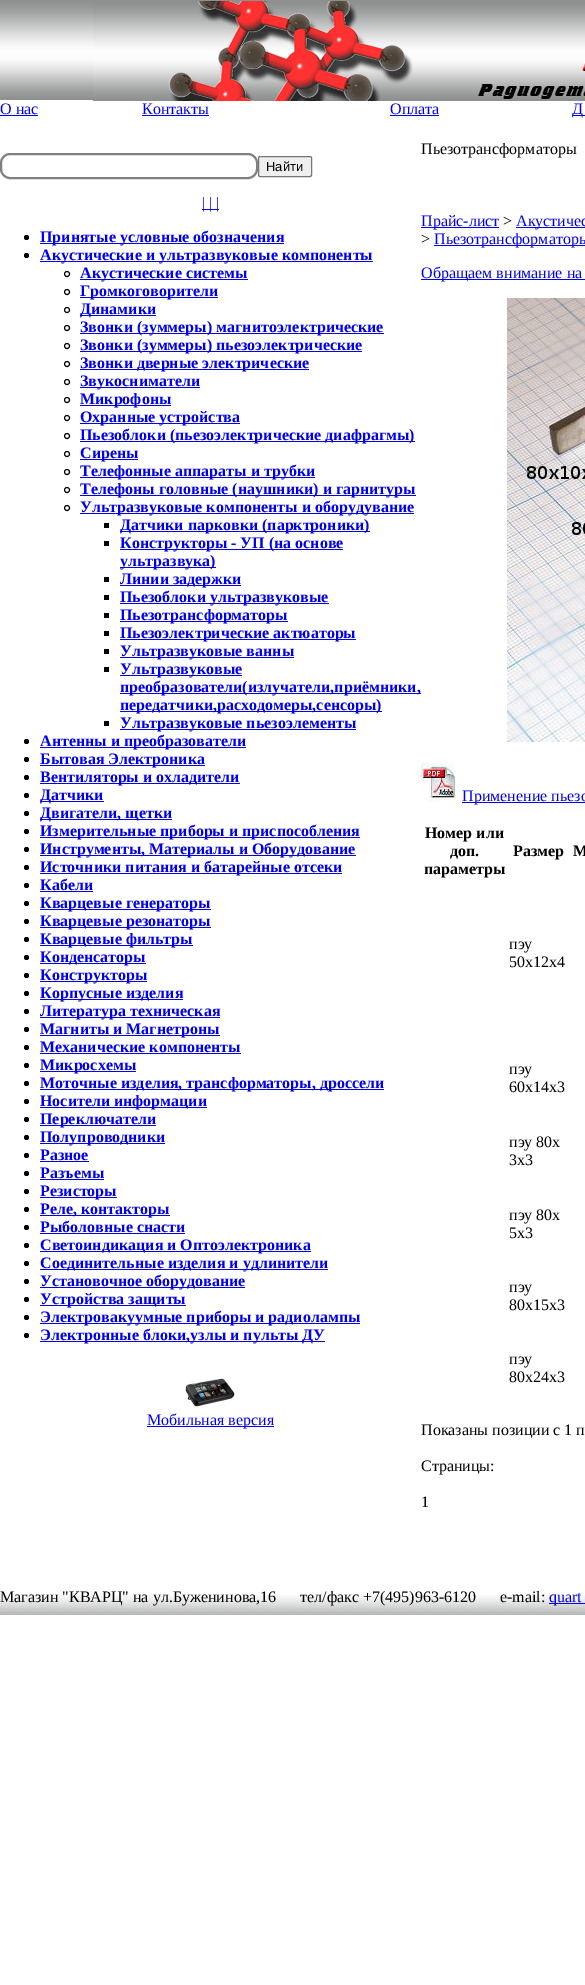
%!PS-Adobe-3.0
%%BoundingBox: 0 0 585 1985
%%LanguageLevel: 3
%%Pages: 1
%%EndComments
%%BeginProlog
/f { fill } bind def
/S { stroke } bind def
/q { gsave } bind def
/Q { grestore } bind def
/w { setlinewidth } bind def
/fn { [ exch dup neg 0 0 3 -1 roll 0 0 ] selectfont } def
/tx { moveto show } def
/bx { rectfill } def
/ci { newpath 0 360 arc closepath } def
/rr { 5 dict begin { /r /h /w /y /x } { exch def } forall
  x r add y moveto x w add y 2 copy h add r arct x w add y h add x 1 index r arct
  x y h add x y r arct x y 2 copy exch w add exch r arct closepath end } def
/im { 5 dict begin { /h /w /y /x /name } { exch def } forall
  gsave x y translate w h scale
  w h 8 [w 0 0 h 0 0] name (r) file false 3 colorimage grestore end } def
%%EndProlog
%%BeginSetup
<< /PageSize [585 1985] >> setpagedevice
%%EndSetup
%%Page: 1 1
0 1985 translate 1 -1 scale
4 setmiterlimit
1 setgray
0 0 585 1985 bx
(image0.raw) 0 0 585 100 im
(image1.raw) 93 1 492 100 im
/LiberationSerif-Regular 16 fn
0 0 0.933 setrgbcolor
(О нас) 0 114 tx
0 115 38 1 bx
(Контакты) 142 114 tx
142 115 67 1 bx
(Оплата) 390 114 tx
390 115 49 1 bx
572 115 13 1 bx
(Д) 572 114 tx
0 setgray
(Пьезотрансформаторы) 421 154 tx
0.502 setgray
2 w
1 154 256 24 9 rr S
0.937 setgray
258.5 156.5 53 20 1.5 rr q f Q
0.463 setgray
1 w
S
/LiberationSans-Regular 13 fn
0 setgray
(Найти) 266 171 tx
0 0 0.933 setrgbcolor
202 209 17 1 bx
/LiberationSerif-Regular 16 fn
(| | |) 202 208 tx
0 setgray
26.5 237.5 2.5 ci f
0 0 0.933 setrgbcolor
40 243 244 1 bx
/LiberationSerif-Bold 16 fn
(Принятые условные обозначения) 40 242 tx
0 setgray
26.5 255.5 2.5 ci f
0 0 0.933 setrgbcolor
40 261 333 1 bx
(Акустические и ультразвуковые компоненты) 40 260 tx
0 setgray
67 274 2.5 ci S
0 0 0.933 setrgbcolor
80 279 168 1 bx
(Акустические системы) 80 278 tx
0 setgray
67 292 2.5 ci S
0 0 0.933 setrgbcolor
80 297 138 1 bx
(Громкоговорители) 80 296 tx
0 setgray
67 310 2.5 ci S
0 0 0.933 setrgbcolor
80 315 76 1 bx
(Динамики) 80 314 tx
0 setgray
67 328 2.5 ci S
0 0 0.933 setrgbcolor
80 333 304 1 bx
(Звонки \(зуммеры\) магнитоэлектрические) 80 332 tx
0 setgray
67 346 2.5 ci S
0 0 0.933 setrgbcolor
80 351 282 1 bx
(Звонки \(зуммеры\) пьезоэлектрические) 80 350 tx
0 setgray
67 364 2.5 ci S
0 0 0.933 setrgbcolor
80 369 229 1 bx
(Звонки дверные электрические) 80 368 tx
0 setgray
67 382 2.5 ci S
0 0 0.933 setrgbcolor
80 387 120 1 bx
(Звукосниматели) 80 386 tx
0 setgray
67 400 2.5 ci S
0 0 0.933 setrgbcolor
80 405 91 1 bx
(Микрофоны) 80 404 tx
0 setgray
67 418 2.5 ci S
0 0 0.933 setrgbcolor
80 423 160 1 bx
(Охранные устройства) 80 422 tx
0 setgray
67 436 2.5 ci S
0 0 0.933 setrgbcolor
80 441 335 1 bx
(Пьезоблоки \(пьезоэлектрические диафрагмы\)) 80 440 tx
0 setgray
67 454 2.5 ci S
0 0 0.933 setrgbcolor
80 459 58 1 bx
(Сирены) 80 458 tx
0 setgray
67 472 2.5 ci S
0 0 0.933 setrgbcolor
80 477 235 1 bx
(Телефонные аппараты и трубки) 80 476 tx
0 setgray
67 490 2.5 ci S
0 0 0.933 setrgbcolor
80 495 336 1 bx
(Телефоны головные \(наушники\) и гарнитуры) 80 494 tx
0 setgray
67 508 2.5 ci S
0 0 0.933 setrgbcolor
80 513 334 1 bx
(Ультразвуковые компоненты и оборудувание) 80 512 tx
0 setgray
104 523 5 5 bx
0 0 0.933 setrgbcolor
120 531 250 1 bx
(Датчики парковки \(парктроники\)) 120 530 tx
0 setgray
104 541 5 5 bx
0 0 0.933 setrgbcolor
120 549 223 1 bx
(Конструкторы - УП \(на основе) 120 548 tx
120 567 96 1 bx
(ультразвука\)) 120 566 tx
0 setgray
104 577 5 5 bx
0 0 0.933 setrgbcolor
120 585 121 1 bx
(Линии задержки) 120 584 tx
0 setgray
104 595 5 5 bx
0 0 0.933 setrgbcolor
120 603 209 1 bx
(Пьезоблоки ультразвуковые) 120 602 tx
0 setgray
104 613 5 5 bx
0 0 0.933 setrgbcolor
120 621 168 1 bx
(Пьезотрансформаторы) 120 620 tx
0 setgray
104 631 5 5 bx
0 0 0.933 setrgbcolor
120 639 236 1 bx
(Пьезоэлектрические актюаторы) 120 638 tx
0 setgray
104 649 5 5 bx
0 0 0.933 setrgbcolor
120 657 174 1 bx
(Ультразвуковые ванны) 120 656 tx
0 setgray
104 667 5 5 bx
0 0 0.933 setrgbcolor
120 675 122 1 bx
(Ультразвуковые) 120 674 tx
120 693 301 1 bx
(преобразователи\(излучатели,приёмники,) 120 692 tx
120 711 262 1 bx
(передатчики,расходомеры,сенсоры\)) 120 710 tx
0 setgray
104 721 5 5 bx
0 0 0.933 setrgbcolor
120 729 236 1 bx
(Ультразвуковые пьезоэлементы) 120 728 tx
0 setgray
26.5 741.5 2.5 ci f
0 0 0.933 setrgbcolor
40 747 206 1 bx
(Антенны и преобразователи) 40 746 tx
0 setgray
26.5 759.5 2.5 ci f
0 0 0.933 setrgbcolor
40 765 165 1 bx
(Бытовая Электроника) 40 764 tx
0 setgray
26.5 777.5 2.5 ci f
0 0 0.933 setrgbcolor
40 783 200 1 bx
(Вентиляторы и охладители) 40 782 tx
0 setgray
26.5 795.5 2.5 ci f
0 0 0.933 setrgbcolor
40 801 64 1 bx
(Датчики) 40 800 tx
0 setgray
26.5 813.5 2.5 ci f
0 0 0.933 setrgbcolor
40 819 132 1 bx
(Двигатели, щетки) 40 818 tx
0 setgray
26.5 831.5 2.5 ci f
0 0 0.933 setrgbcolor
40 837 320 1 bx
(Измерительные приборы и приспособления) 40 836 tx
0 setgray
26.5 849.5 2.5 ci f
0 0 0.933 setrgbcolor
40 855 316 1 bx
(Инструменты, Материалы и Оборудование) 40 854 tx
0 setgray
26.5 867.5 2.5 ci f
0 0 0.933 setrgbcolor
40 873 302 1 bx
(Источники питания и батарейные отсеки) 40 872 tx
0 setgray
26.5 885.5 2.5 ci f
0 0 0.933 setrgbcolor
(Кабели) 40 890 tx
40 891 53 1 bx
0 setgray
26.5 903.5 2.5 ci f
0 0 0.933 setrgbcolor
40 909 171 1 bx
(Кварцевые генераторы) 40 908 tx
0 setgray
26.5 921.5 2.5 ci f
0 0 0.933 setrgbcolor
40 927 171 1 bx
(Кварцевые резонаторы) 40 926 tx
0 setgray
26.5 939.5 2.5 ci f
0 0 0.933 setrgbcolor
40 945 153 1 bx
(Кварцевые фильтры) 40 944 tx
0 setgray
26.5 957.5 2.5 ci f
0 0 0.933 setrgbcolor
40 963 106 1 bx
(Конденсаторы) 40 962 tx
0 setgray
26.5 975.5 2.5 ci f
0 0 0.933 setrgbcolor
40 981 107 1 bx
(Конструкторы) 40 980 tx
0 setgray
26.5 993.5 2.5 ci f
0 0 0.933 setrgbcolor
40 999 143 1 bx
(Корпусные изделия) 40 998 tx
0 setgray
26.5 1011.5 2.5 ci f
0 0 0.933 setrgbcolor
40 1017 180 1 bx
(Литература техническая) 40 1016 tx
0 setgray
26.5 1029.5 2.5 ci f
0 0 0.933 setrgbcolor
40 1035 180 1 bx
(Магниты и Магнетроны) 40 1034 tx
0 setgray
26.5 1047.5 2.5 ci f
0 0 0.933 setrgbcolor
(Механические компоненты) 40 1052 tx
40 1053 201 1 bx
0 setgray
26.5 1065.5 2.5 ci f
0 0 0.933 setrgbcolor
40 1071 96 1 bx
(Микросхемы) 40 1070 tx
0 setgray
26.5 1083.5 2.5 ci f
0 0 0.933 setrgbcolor
40 1089 344 1 bx
(Моточные изделия, трансформаторы, дроссели) 40 1088 tx
0 setgray
26.5 1101.5 2.5 ci f
0 0 0.933 setrgbcolor
40 1107 167 1 bx
(Носители информации) 40 1106 tx
0 setgray
26.5 1119.5 2.5 ci f
0 0 0.933 setrgbcolor
40 1125 116 1 bx
(Переключатели) 40 1124 tx
0 setgray
26.5 1137.5 2.5 ci f
0 0 0.933 setrgbcolor
40 1143 125 1 bx
(Полупроводники) 40 1142 tx
0 setgray
26.5 1155.5 2.5 ci f
0 0 0.933 setrgbcolor
(Разное) 40 1160 tx
40 1161 49 1 bx
0 setgray
26.5 1173.5 2.5 ci f
0 0 0.933 setrgbcolor
(Разъемы) 40 1178 tx
40 1179 64 1 bx
0 setgray
26.5 1191.5 2.5 ci f
0 0 0.933 setrgbcolor
40 1197 77 1 bx
(Резисторы) 40 1196 tx
0 setgray
26.5 1209.5 2.5 ci f
0 0 0.933 setrgbcolor
40 1215 130 1 bx
(Реле, контакторы) 40 1214 tx
0 setgray
26.5 1227.5 2.5 ci f
0 0 0.933 setrgbcolor
(Рыболовные снасти) 40 1232 tx
40 1233 145 1 bx
0 setgray
26.5 1245.5 2.5 ci f
0 0 0.933 setrgbcolor
40 1251 271 1 bx
(Светоиндикация и Оптоэлектроника) 40 1250 tx
0 setgray
26.5 1263.5 2.5 ci f
0 0 0.933 setrgbcolor
40 1269 288 1 bx
(Соединительные изделия и удлинители) 40 1268 tx
0 setgray
26.5 1281.5 2.5 ci f
0 0 0.933 setrgbcolor
40 1287 205 1 bx
(Установочное оборудование) 40 1286 tx
0 setgray
26.5 1299.5 2.5 ci f
0 0 0.933 setrgbcolor
40 1305 146 1 bx
(Устройства защиты) 40 1304 tx
0 setgray
26.5 1317.5 2.5 ci f
0 0 0.933 setrgbcolor
40 1323 320 1 bx
(Электровакуумные приборы и радиолампы) 40 1322 tx
0 setgray
26.5 1335.5 2.5 ci f
0 0 0.933 setrgbcolor
40 1341 285 1 bx
(Электронные блоки,узлы и пульты ДУ) 40 1340 tx
(image2.raw) 185 1378 50 29 im
147 1426 127 1 bx
/LiberationSerif-Regular 16 fn
(Мобильная версия) 147 1425 tx
421 227 78 1 bx
(Прайс-лист) 421 226 tx
0 setgray
(>) 503 226 tx
0 0 0.933 setrgbcolor
516 227 69 1 bx
(Акустичес) 516 226 tx
0 setgray
(>) 421 244 tx
0 0 0.933 setrgbcolor
434 245 151 1 bx
(Пьезотрансформаторы) 434 244 tx
421 279 164 1 bx
(Обращаем внимание на) 421 278 tx
(image3.raw) 507 298 78 445 im
(image4.raw) 421 763 37 38 im
462 802 123 1 bx
(Применение пьезо) 462 801 tx
/LiberationSerif-Bold 16 fn
0 setgray
(Номер или) 425 838 tx
(доп.) 450 856 tx
(параметры) 424 874 tx
(Размер) 513 856 tx
(М) 573 856 tx
/LiberationSerif-Regular 16 fn
(пэу) 509 949 tx
(50x12x4) 509 967 tx
(пэу) 509 1074 tx
(60x14x3) 509 1092 tx
(пэу 80x) 509 1147 tx
(3x3) 509 1165 tx
(пэу 80x) 509 1220 tx
(5x3) 509 1238 tx
(пэу) 509 1292 tx
(80x15x3) 509 1310 tx
(пэу) 509 1364 tx
(80x24x3) 509 1382 tx
(Показаны позиции с 1 п) 421 1435 tx
(Страницы:) 421 1471 tx
(1) 421 1507 tx
(image5.raw) 0 1595 300 20 im
(Магазин "КВАРЦ" на ул.Буженинова,16) 0 1602 tx
(image6.raw) 300 1595 200 20 im
(тел/факс +7\(495\)963-6120) 300 1602 tx
(image7.raw) 500 1595 85 20 im
(e-mail:) 500 1602 tx
0 0 0.933 setrgbcolor
549 1603 36 1 bx
(quart) 549 1602 tx
showpage
%%EOF
